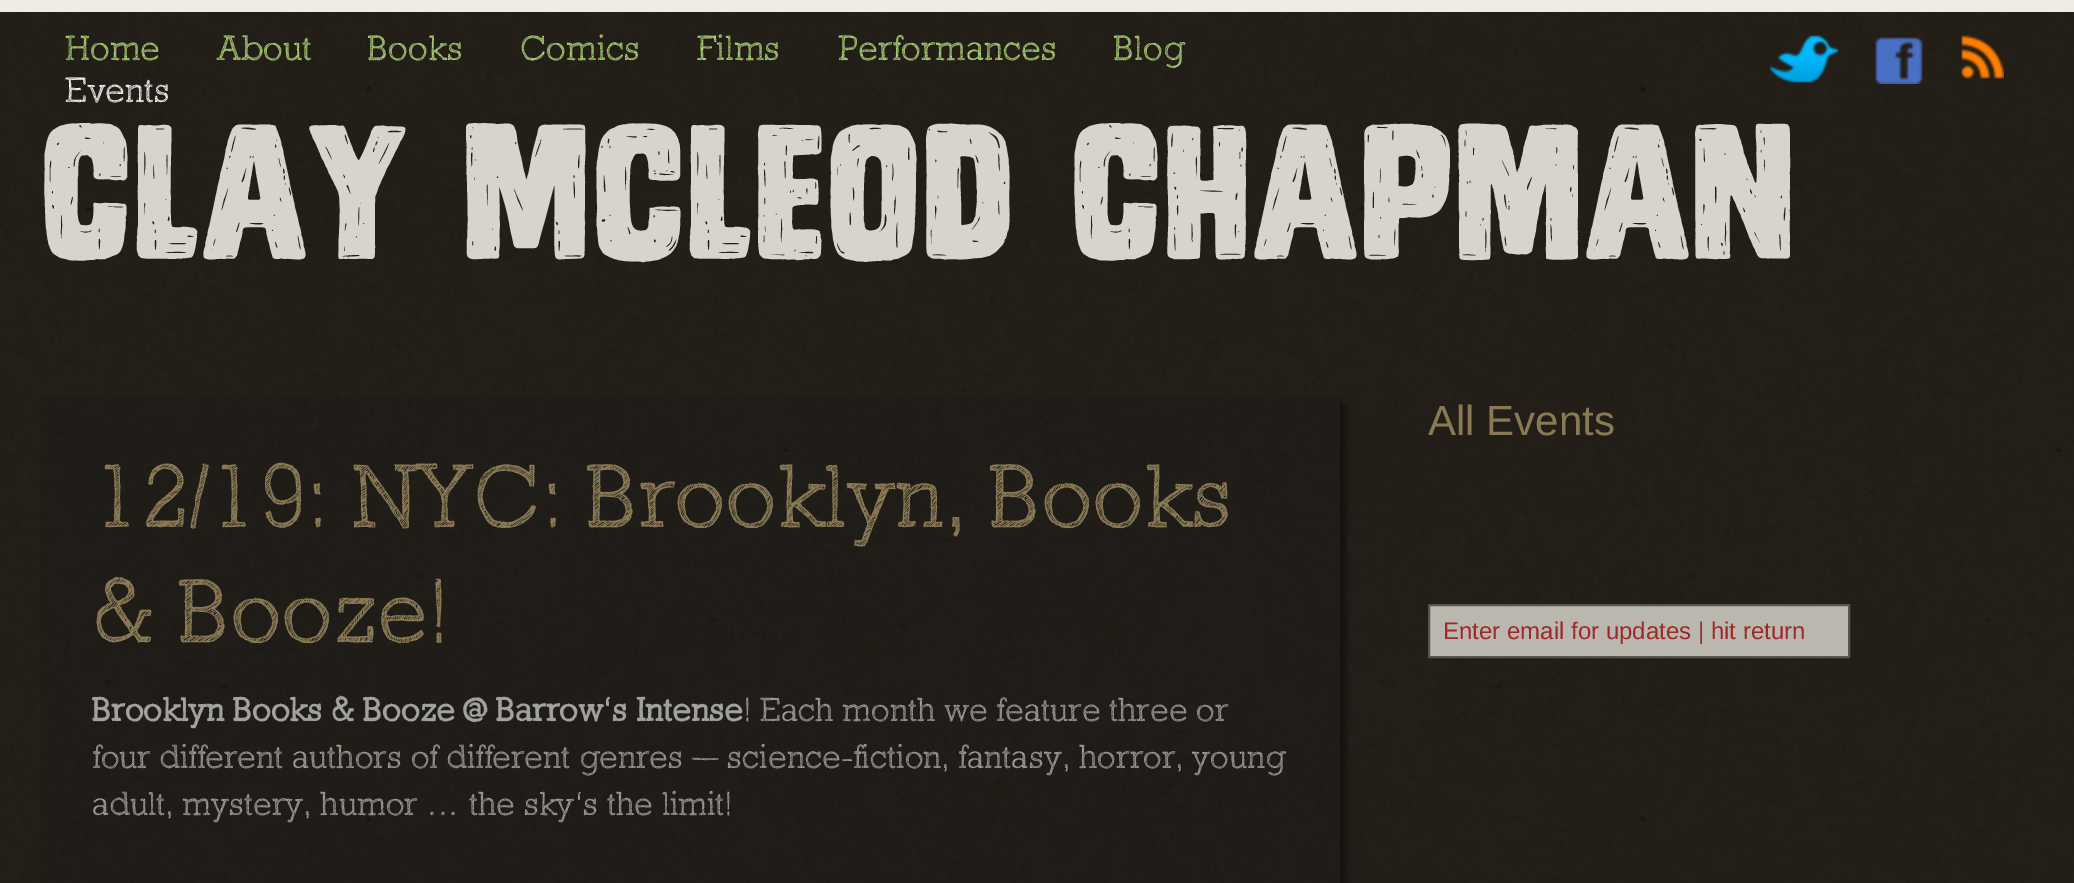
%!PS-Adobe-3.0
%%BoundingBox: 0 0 2074 883
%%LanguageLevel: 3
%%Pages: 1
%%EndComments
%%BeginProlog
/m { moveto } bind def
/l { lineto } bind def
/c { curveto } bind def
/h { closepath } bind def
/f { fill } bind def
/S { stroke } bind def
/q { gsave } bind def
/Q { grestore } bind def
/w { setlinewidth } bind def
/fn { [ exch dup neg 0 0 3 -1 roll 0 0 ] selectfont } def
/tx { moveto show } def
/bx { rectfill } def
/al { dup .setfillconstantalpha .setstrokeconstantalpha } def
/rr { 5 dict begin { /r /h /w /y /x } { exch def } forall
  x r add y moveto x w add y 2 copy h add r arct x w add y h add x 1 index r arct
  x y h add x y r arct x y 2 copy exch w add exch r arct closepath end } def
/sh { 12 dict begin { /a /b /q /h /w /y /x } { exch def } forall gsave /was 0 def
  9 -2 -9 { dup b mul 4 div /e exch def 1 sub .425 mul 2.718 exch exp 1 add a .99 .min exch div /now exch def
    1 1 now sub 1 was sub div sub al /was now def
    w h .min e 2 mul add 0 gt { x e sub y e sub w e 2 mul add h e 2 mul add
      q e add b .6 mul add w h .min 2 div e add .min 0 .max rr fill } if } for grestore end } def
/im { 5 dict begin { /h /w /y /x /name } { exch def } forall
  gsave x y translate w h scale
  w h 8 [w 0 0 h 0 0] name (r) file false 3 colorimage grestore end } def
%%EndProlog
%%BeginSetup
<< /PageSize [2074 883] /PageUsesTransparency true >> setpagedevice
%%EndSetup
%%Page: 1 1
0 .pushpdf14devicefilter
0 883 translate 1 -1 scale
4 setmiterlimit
1 setgray
0 0 2074 883 bx
(image0.raw) 0 12 2074 871 im
0.933 0.922 0.886 setrgbcolor
0 0 2074 12 bx
/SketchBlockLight-Light 36 fn
0.686 0.839 0.478 setrgbcolor
(Home) 65 60 tx
(About) 217 60 tx
(Books) 368 60 tx
(Comics) 520 60 tx
(Films) 697 60 tx
(Performances) 838 60 tx
(Blog) 1114 60 tx
1 setgray
(Events) 65 102 tx
(image1.raw) 1770 35 69 48 im
(image2.raw) 1875 37 48 47 im
(image3.raw) 1961 35 43 44 im
/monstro-Regular 184 fn
0.843 0.831 0.8 setrgbcolor
(Clay Mcleod Chapman) 40 259 tx
q
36 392 m 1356 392 l 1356 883 l 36 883 l h 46 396 m 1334 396 l 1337.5 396 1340 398.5 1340 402 c 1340 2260 l 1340 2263.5 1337.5 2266 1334 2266 c 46 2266 l 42.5 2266 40 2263.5 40 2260 c 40 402 l 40 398.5 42.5 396 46 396 c h eoclip newpath
0.067 setgray
46 402 1300 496 6 3 1 sh
Q
0.17 al
0.067 setgray
40 396 1300 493 6 rr f
/SketchBlockLight-Light 92 fn
1 al
0.537 0.475 0.333 setrgbcolor
(12/19: NYC: Brooklyn, Books) 92 527 tx
(& Booze!) 92 642 tx
/SketchBlockLight-Bold 34 fn
0.631 setgray
(Brooklyn Books & Booze @ Barrow’s Intense) 92 721 tx
/SketchBlockLight-Light 34 fn
(! Each month we feature three or) 743 721 tx
(four different authors of different genres — science-fiction, fantasy, horror, young) 92 768 tx
(adult, mystery, humor … the sky’s the limit!) 92 815 tx
/LiberationSans-Regular 42 fn
0.537 0.475 0.333 setrgbcolor
(All Events) 1428 435 tx
0.729 0.718 0.682 setrgbcolor
1429 605 m 1849 605 l 1849 657 l 1429 657 l h q f Q
0.333 setgray
2 w
S
/LiberationSans-Regular 24 fn
0.624 0.157 0.157 setrgbcolor
(Enter email for updates | hit return) 1443 639 tx
.poppdf14devicefilter showpage
%%EOF
